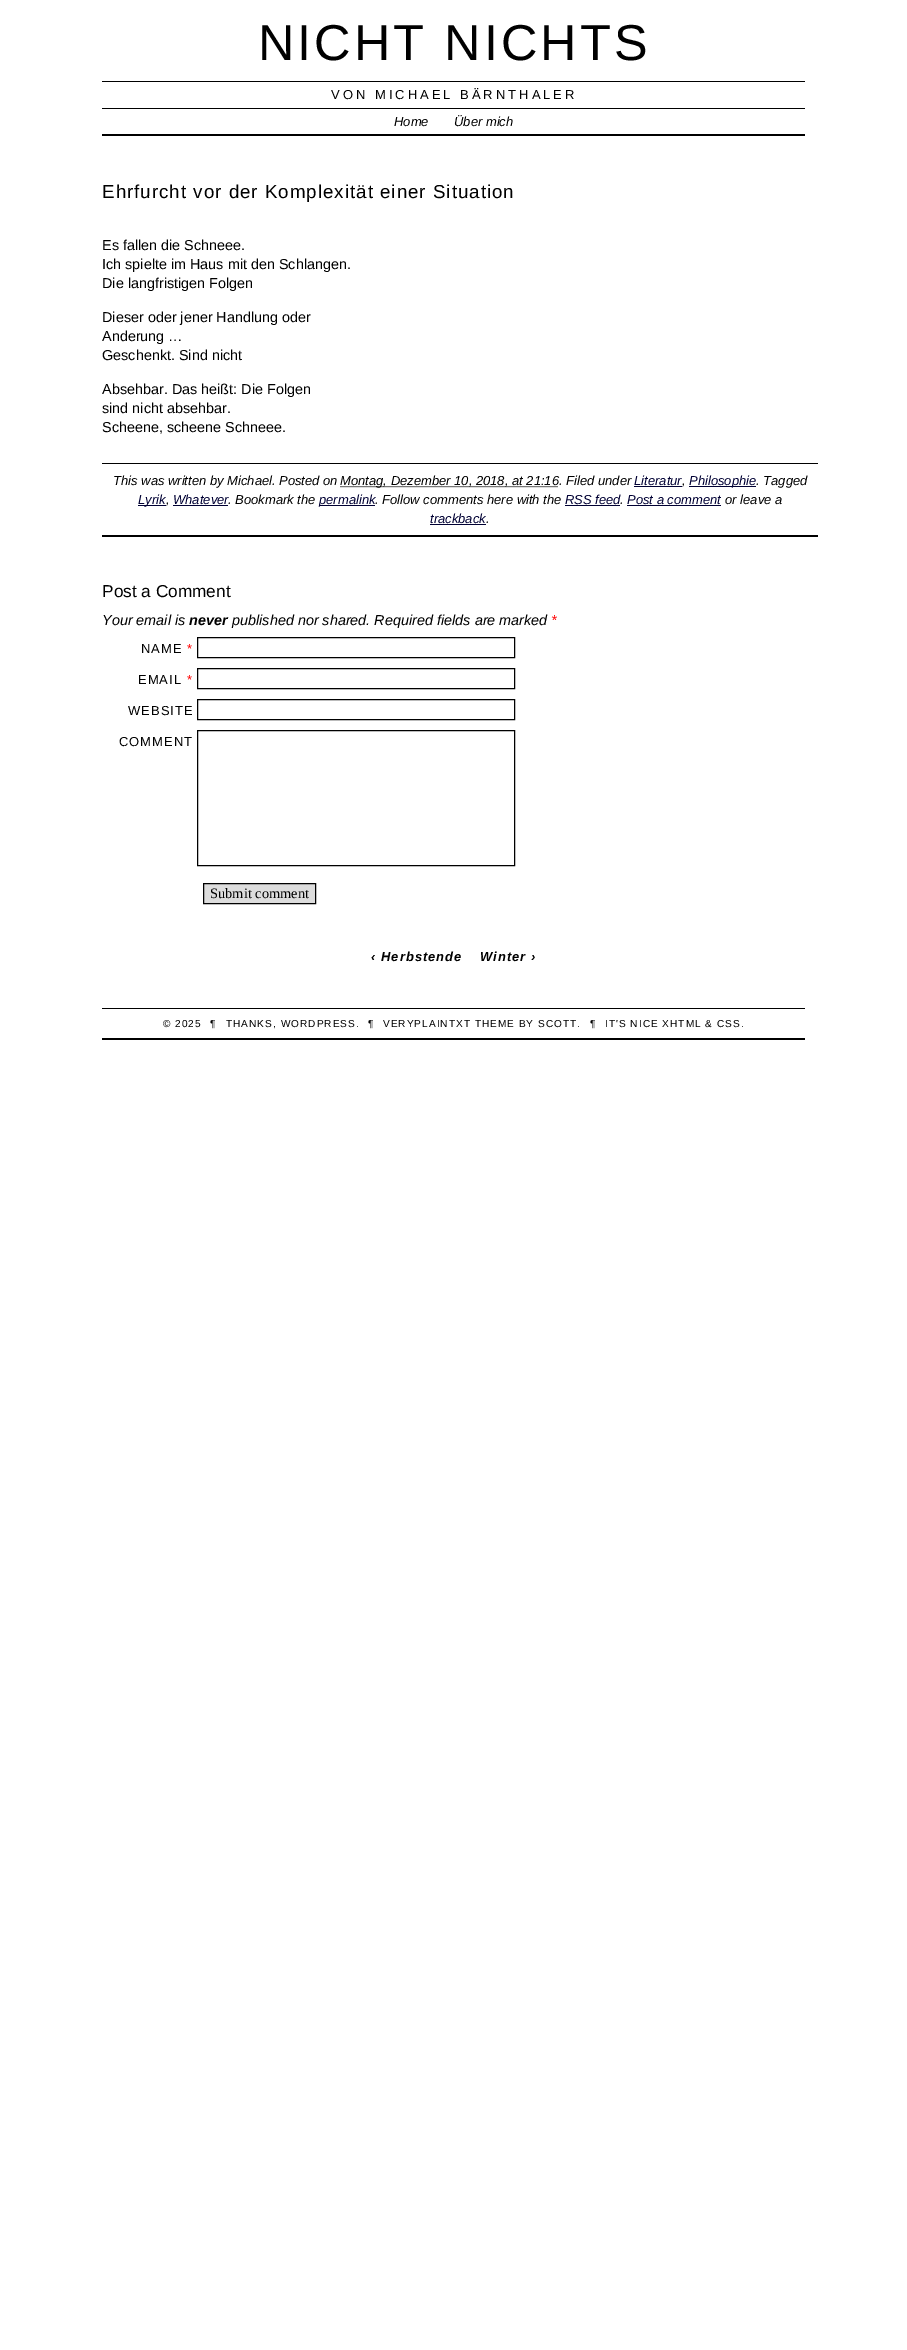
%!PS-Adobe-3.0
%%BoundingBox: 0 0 907 2350
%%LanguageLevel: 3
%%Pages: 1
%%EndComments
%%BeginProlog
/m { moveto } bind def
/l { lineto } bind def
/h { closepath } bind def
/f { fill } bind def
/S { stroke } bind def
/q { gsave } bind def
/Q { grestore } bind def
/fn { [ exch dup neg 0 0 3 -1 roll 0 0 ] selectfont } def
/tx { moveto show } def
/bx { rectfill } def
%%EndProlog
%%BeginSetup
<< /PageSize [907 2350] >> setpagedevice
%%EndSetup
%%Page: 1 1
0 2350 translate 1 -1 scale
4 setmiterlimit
1 setgray
0 0 907 2350 bx
/LiberationSans-Regular 50.5 fn
0 setgray
258 60 m 3 0 (NICHT NICHTS) ashow
102 81 703 1 bx
/LiberationSans-Regular 13 fn
331 99 m 3 0 (VON MICHAEL BÄRNTHALER) ashow
102 108 703 1 bx
102 134 703 2 bx
/LiberationSans-Italic 13 fn
(Home) 394 126 tx
(Über mich) 454 126 tx
/LiberationSans-Regular 18.75 fn
102 198 m 1 0 (Ehrfurcht vor der Komplexität einer Situation) ashow
/LiberationSans-Regular 14.4 fn
(Es fallen die Schneee.) 102 250 tx
(Ich spielte im Haus mit den Schlangen.) 102 269 tx
(Die langfristigen Folgen) 102 288 tx
(Dieser oder jener Handlung oder) 102 322 tx
(Anderung …) 102 341 tx
(Geschenkt. Sind nicht) 102 360 tx
(Absehbar. Das heißt: Die Folgen) 102 394 tx
(sind nicht absehbar.) 102 413 tx
(Scheene, scheene Schneee.) 102 432 tx
102 463 716 1 bx
102 535 716 2 bx
/LiberationSans-Italic 13 fn
(This was written by Michael. Posted on) 113 485 tx
[1 1] 0 setdash
340.5 486.5 m 558.5 486.5 l S
(Montag, Dezember 10, 2018, at 21:16. Filed under) 340 485 tx
0 0 0.2 setrgbcolor
(Literatur) 634 485 tx
634 486 48 1 bx
689 486 67 1 bx
(Philosophie) 689 485 tx
0 setgray
(. Tagged) 756 485 tx
(,) 682 485 tx
0 0 0.2 setrgbcolor
138 505 28 1 bx
(Lyrik) 138 504 tx
(Whatever) 173 504 tx
173 505 55 1 bx
0 setgray
(. Bookmark the) 228 504 tx
0 0 0.2 setrgbcolor
319 505 56 1 bx
(permalink) 319 504 tx
0 setgray
(. Follow comments here with the) 375 504 tx
0 0 0.2 setrgbcolor
(RSS feed) 565 504 tx
565 505 55 1 bx
(Post a comment) 627 504 tx
627 505 94 1 bx
0 setgray
(or leave a) 725 504 tx
(,) 166 504 tx
(.) 620 504 tx
0 0 0.2 setrgbcolor
(trackback) 430 523 tx
430 524 56 1 bx
0 setgray
(.) 486 523 tx
/LiberationSans-Regular 17.25 fn
(Post a Comment) 102 597 tx
/LiberationSans-Italic 14.4 fn
(Your email is) 102 625 tx
/LiberationSans-BoldItalic 14.4 fn
(never) 189 625 tx
/LiberationSans-Italic 14.4 fn
(published nor shared. Required fields are marked) 232 625 tx
1 0 0 setrgbcolor
(*) 551 625 tx
/LiberationSans-Regular 13 fn
0 setgray
141 653 m 1 0 (NAME) ashow
1 0 0 setrgbcolor
187 653 m 1 0 (*) ashow
0 setgray
[] 0 setdash
197.5 637.5 317 20 rectstroke
138 684 m 1 0 (EMAIL) ashow
1 0 0 setrgbcolor
187 684 m 1 0 (*) ashow
0 setgray
197.5 668.5 317 20 rectstroke
128 715 m 1 0 (WEBSITE) ashow
197.5 699.5 317 20 rectstroke
119 746 m 1 0 (COMMENT) ashow
197.5 730.5 317 135 rectstroke
0.867 setgray
203.5 883.5 m 315.5 883.5 l 315.5 903.5 l 203.5 903.5 l h q f Q
0 setgray
S
/LiberationSerif-Regular 14.4 fn
(Submit comment) 210 898 tx
/LiberationSans-BoldItalic 13 fn
371 961 m 1 0 (‹ Herbstende) ashow
480 961 m 1 0 (Winter ›) ashow
102 1008 703 1 bx
102 1038 703 2 bx
/LiberationSans-Regular 10.1 fn
163 1027 m 1 0 (© 2025) ashow
210 1027 m 1 0 (¶) ashow
226 1027 m 1 0 (THANKS, WORDPRESS.) ashow
368 1027 m 1 0 (¶) ashow
383 1027 m 1 0 (VERYPLAINTXT THEME BY SCOTT.) ashow
590 1027 m 1 0 (¶) ashow
605 1027 m 1 0 (IT'S NICE XHTML & CSS.) ashow
showpage
%%EOF
